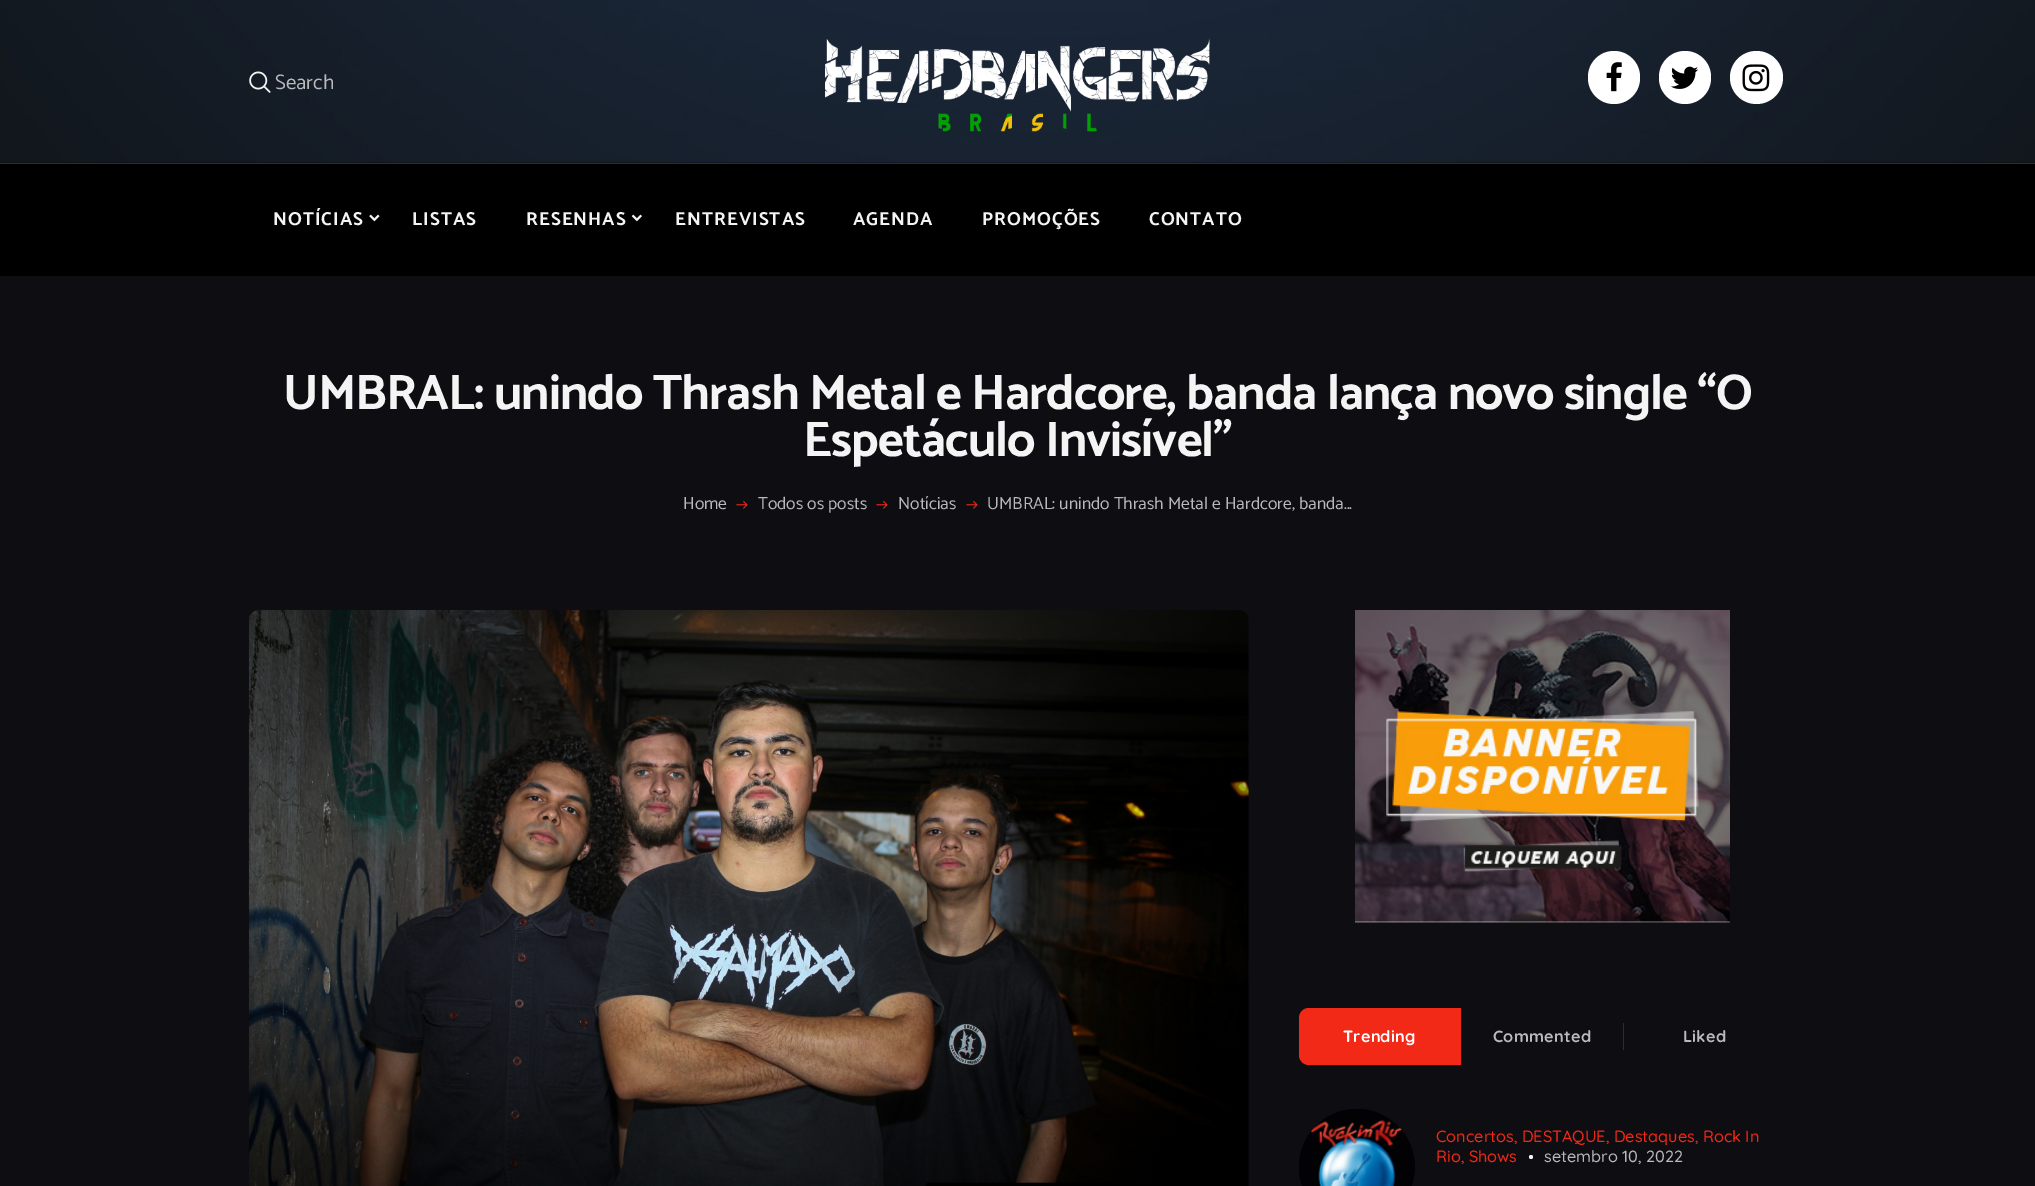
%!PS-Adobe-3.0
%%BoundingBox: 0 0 2035 1186
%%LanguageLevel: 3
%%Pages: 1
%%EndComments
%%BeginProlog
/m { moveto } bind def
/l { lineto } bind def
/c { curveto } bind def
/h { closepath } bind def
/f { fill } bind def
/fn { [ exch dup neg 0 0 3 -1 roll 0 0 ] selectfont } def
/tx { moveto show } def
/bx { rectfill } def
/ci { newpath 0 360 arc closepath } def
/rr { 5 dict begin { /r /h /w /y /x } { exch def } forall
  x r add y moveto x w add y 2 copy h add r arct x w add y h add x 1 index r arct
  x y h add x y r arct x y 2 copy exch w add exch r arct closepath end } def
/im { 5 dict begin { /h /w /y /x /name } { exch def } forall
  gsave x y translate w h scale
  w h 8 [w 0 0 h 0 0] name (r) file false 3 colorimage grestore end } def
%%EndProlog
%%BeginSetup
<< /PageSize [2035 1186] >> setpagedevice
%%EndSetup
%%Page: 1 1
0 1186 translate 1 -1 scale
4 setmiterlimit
0.055 0.051 0.071 setrgbcolor
0 0 2035 1186 bx
(image0.raw) 0 0 2035 163 im
0.18 0.173 0.2 setrgbcolor
0 163 2035 1 bx
(image1.raw) 249 71 22 22 im
/Catamaran-Regular 21 fn
0.722 0.729 0.733 setrgbcolor
(Search) 275 89 tx
(image2.raw) 825 38 385 94 im
1 setgray
1588 51 52 53 26 rr f
(image3.raw) 1606 62 16 30 im
1659 51 52 53 26 rr f
(image4.raw) 1671 66 28 23 im
1756.5 77.5 26.5 ci f
(image5.raw) 1742 64 28 28 im
0 setgray
0 164 2035 112 bx
/Catamaran-Bold 18.75 fn
0.957 setgray
273 225 m 1 0 (NOTÍCIAS) ashow
(image6.raw) 369 214 11 8 im
412 225 m 1 0 (LISTAS) ashow
526 225 m 1 0 (RESENHAS) ashow
(image7.raw) 631 214 11 8 im
675 225 m 1 0 (ENTREVISTAS) ashow
853 225 m 1 0 (AGENDA) ashow
982 225 m 1 0 (PROMOÇÕES) ashow
1149 225 m 1 0 (CONTATO) ashow
/Catamaran-Bold 50 fn
283 409 m -0.95 0 (UMBRAL: unindo Thrash Metal e Hardcore, banda lança novo single “O) ashow
803 456 m -0.95 0 (Espetáculo Invisível”) ashow
/Catamaran-Regular 17.5 fn
0.722 0.729 0.733 setrgbcolor
(Home) 683 509 tx
(image8.raw) 736 501 12 8 im
(Todos os posts) 758 509 tx
(image8.raw) 876 501 12 8 im
(Notícias) 898 509 tx
(image8.raw) 966 501 12 8 im
(UMBRAL: unindo Thrash Metal e Hardcore, banda...) 987 509 tx
(image9.raw) 248 610 1001 576 im
(image10.raw) 1355 610 375 313 im
0.953 0.161 0.094 setrgbcolor
1309 1008 m 1461 1008 l 1461 1065 l 1309 1065 l 1303.5 1065 1299 1060.5 1299 1055 c 1299 1018 l 1299 1012.5 1303.5 1008 1309 1008 c h f
/Quicksand-Bold 16.25 fn
1 setgray
1343 1042 m 0.25 0 (Trending) ashow
0.722 0.729 0.733 setrgbcolor
1493 1042 m 0.25 0 (Commented) ashow
0.18 0.173 0.2 setrgbcolor
1623 1023 1 27 bx
0.722 0.729 0.733 setrgbcolor
1683 1042 m 0.25 0 (Liked) ashow
(image11.raw) 1299 1109 116 77 im
/Quicksand-Medium 16.25 fn
0.953 0.161 0.094 setrgbcolor
(Concertos, DESTAQUE, Destaques, Rock In) 1436 1142 tx
(Rio, Shows) 1436 1162 tx
0.957 setgray
1531 1157 2 ci f
0.722 0.729 0.733 setrgbcolor
(setembro 10, 2022) 1544 1162 tx
showpage
%%EOF
